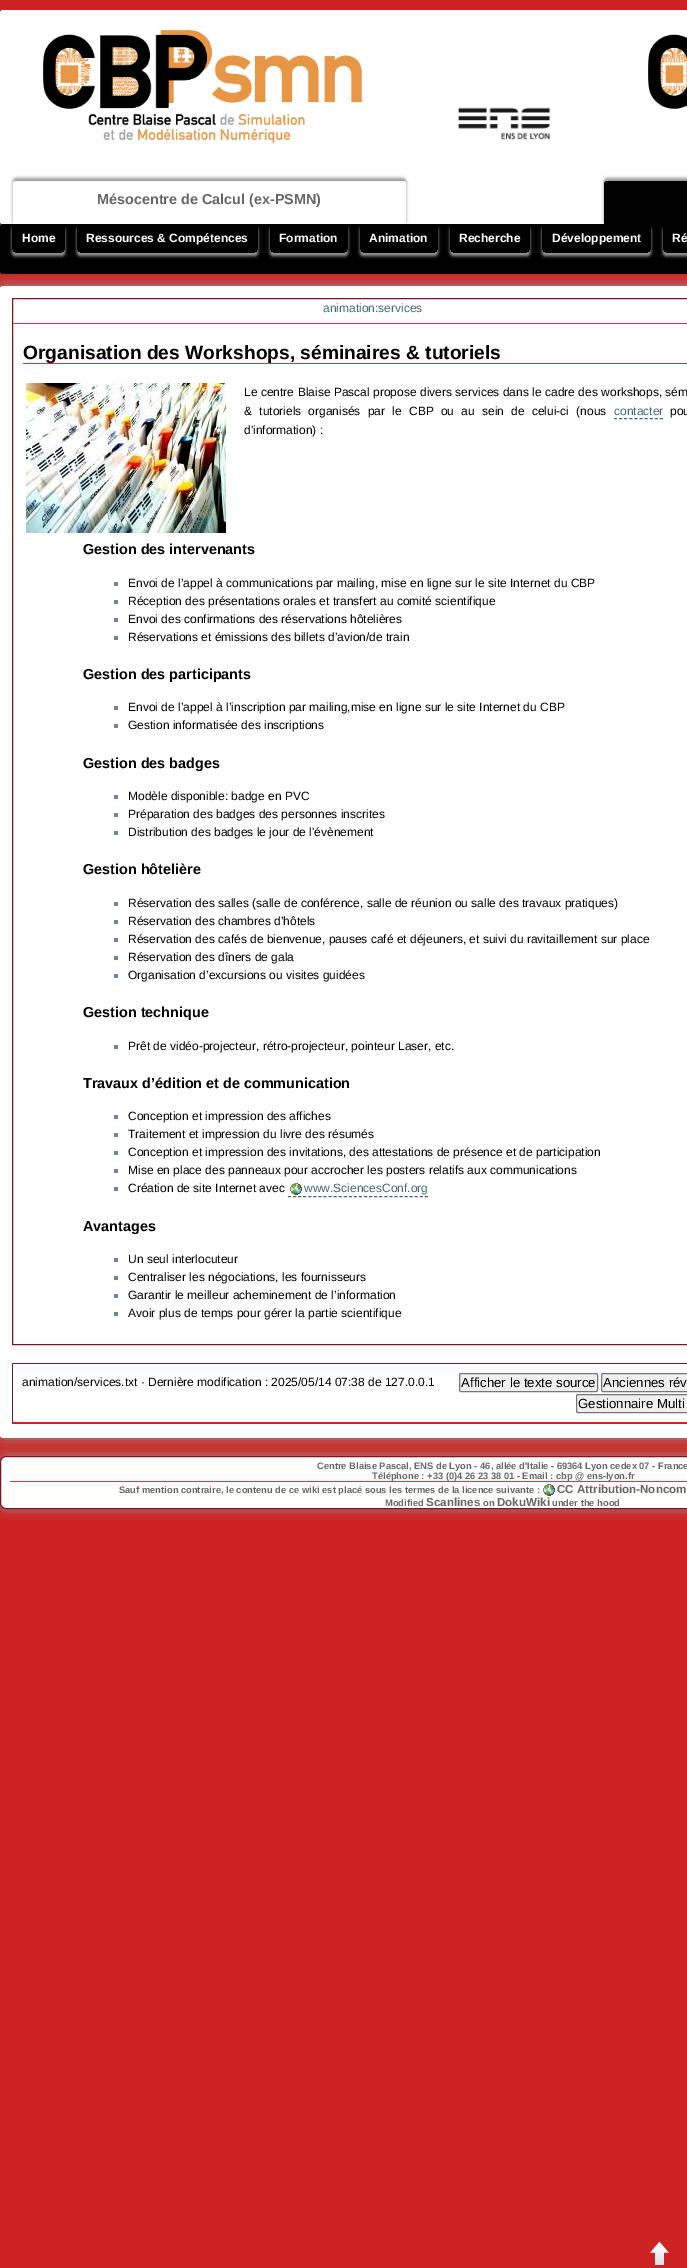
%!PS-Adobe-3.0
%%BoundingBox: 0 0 687 2268
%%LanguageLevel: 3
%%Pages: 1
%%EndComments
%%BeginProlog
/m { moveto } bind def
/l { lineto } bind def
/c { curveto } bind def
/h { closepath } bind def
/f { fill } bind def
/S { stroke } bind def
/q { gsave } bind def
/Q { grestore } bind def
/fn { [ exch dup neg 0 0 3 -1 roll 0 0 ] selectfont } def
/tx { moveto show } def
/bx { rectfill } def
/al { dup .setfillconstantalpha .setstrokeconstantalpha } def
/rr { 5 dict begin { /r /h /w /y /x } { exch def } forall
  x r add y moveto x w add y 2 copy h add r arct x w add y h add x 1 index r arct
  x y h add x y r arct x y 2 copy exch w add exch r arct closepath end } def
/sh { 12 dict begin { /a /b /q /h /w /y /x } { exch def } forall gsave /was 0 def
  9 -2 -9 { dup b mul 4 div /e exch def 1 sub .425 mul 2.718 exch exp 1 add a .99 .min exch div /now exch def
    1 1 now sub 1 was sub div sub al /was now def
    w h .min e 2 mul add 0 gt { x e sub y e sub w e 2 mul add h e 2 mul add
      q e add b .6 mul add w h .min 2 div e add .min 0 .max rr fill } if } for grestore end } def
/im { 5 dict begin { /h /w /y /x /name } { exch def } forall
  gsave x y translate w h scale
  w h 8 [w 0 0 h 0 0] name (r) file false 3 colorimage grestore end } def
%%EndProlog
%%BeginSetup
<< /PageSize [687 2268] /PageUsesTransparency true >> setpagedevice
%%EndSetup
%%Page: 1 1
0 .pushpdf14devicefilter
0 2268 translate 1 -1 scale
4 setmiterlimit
0.804 0.137 0.137 setrgbcolor
0 0 687 2268 bx
1 setgray
0 10 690 214 3 rr f
(image0.raw) 43 29 319 115 im
(image1.raw) 648 34 39 75 im
(image2.raw) 458 107 93 33 im
0 164 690 60 3 rr f
0.6 setgray
13 178 393 46 3 1.5 1 sh
1 setgray
16 181 m 403 181 l 404.5 181 406 182.5 406 184 c 406 227 l 13 227 l 13 184 l 13 182.5 14.5 181 16 181 c h f
/LiberationSans-Bold 14.4 fn
0.4 setgray
(Mésocentre de Calcul \(ex-PSMN\)) 97 204 tx
0.6 setgray
604 178 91 46 3 1.5 1 sh
0 setgray
607 181 m 687 181 l 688.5 181 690 182.5 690 184 c 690 227 l 604 227 l 604 184 l 604 182.5 605.5 181 607 181 c h f
0.6 setgray
0 286 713 1152 3 7.5 1 sh
0 setgray
0 224 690 50 3 rr f
q
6 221 m 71 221 l 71 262 l 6 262 l h 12 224 m 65 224 l 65 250 l 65 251.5 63.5 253 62 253 c 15 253 l 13.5 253 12 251.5 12 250 c h eoclip newpath
0.6 setgray
12 227 53 29 3 1.5 1 sh
Q
/LiberationSans-Bold 12 fn
1 1 0.996 setrgbcolor
(Home) 22 242 tx
q
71 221 m 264 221 l 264 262 l 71 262 l h 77 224 m 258 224 l 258 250 l 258 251.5 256.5 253 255 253 c 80 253 l 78.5 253 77 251.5 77 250 c h eoclip newpath
0.6 setgray
77 227 181 29 3 1.5 1 sh
Q
(Ressources & Compétences) 86 242 tx
q
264 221 m 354 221 l 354 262 l 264 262 l h 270 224 m 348 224 l 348 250 l 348 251.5 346.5 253 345 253 c 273 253 l 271.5 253 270 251.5 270 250 c h eoclip newpath
0.6 setgray
270 227 78 29 3 1.5 1 sh
Q
(Formation) 279 242 tx
q
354 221 m 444 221 l 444 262 l 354 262 l h 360 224 m 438 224 l 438 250 l 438 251.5 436.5 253 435 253 c 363 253 l 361.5 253 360 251.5 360 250 c h eoclip newpath
0.6 setgray
360 227 78 29 3 1.5 1 sh
Q
(Animation) 369 242 tx
q
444 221 m 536 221 l 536 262 l 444 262 l h 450 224 m 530 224 l 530 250 l 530 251.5 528.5 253 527 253 c 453 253 l 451.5 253 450 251.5 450 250 c h eoclip newpath
0.6 setgray
450 227 80 29 3 1.5 1 sh
Q
(Recherche) 459 242 tx
q
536 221 m 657 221 l 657 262 l 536 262 l h 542 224 m 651 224 l 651 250 l 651 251.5 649.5 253 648 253 c 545 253 l 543.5 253 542 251.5 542 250 c h eoclip newpath
0.6 setgray
542 227 109 29 3 1.5 1 sh
Q
(Développement) 552 242 tx
q
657 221 m 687 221 l 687 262 l 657 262 l h 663 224 m 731 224 l 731 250 l 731 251.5 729.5 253 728 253 c 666 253 l 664.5 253 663 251.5 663 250 c h eoclip newpath
0.6 setgray
663 227 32 29 3 1.5 1 sh
Q
(Ré) 672 242 tx
1 setgray
0 286 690 1152 3 rr f
0.471 0.082 0.153 setrgbcolor
12.5 298.5 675 1046 rectstroke
0.918 0.184 0.298 setrgbcolor
13 323 674 1 bx
/LiberationSans-Regular 12 fn
0.263 0.412 0.463 setrgbcolor
(animation:services) 323 312 tx
0.918 0.184 0.298 setrgbcolor
23 363 664 1 bx
/LiberationSans-Bold 19.2 fn
0 setgray
(Organisation des Workshops, séminaires & tutoriels) 23 359 tx
(image3.raw) 26 383 200 150 im
/LiberationSans-Regular 12 fn
244 396 m 0.1 0 32 (Le centre Blaise Pascal propose divers services dans le cadre des workshops, sém) widthshow
244 415 m 3.9 0 32 (& tutoriels organisés par le CBP ou au sein de celui-ci \(nous) widthshow
0.263 0.412 0.463 setrgbcolor
(contacter) 614 415 tx
[3 2.11] 0 setdash
614 418.5 m 663 418.5 l S
0 setgray
670 415 m 3.9 0 32 (pou) widthshow
(d'information\) :) 244 434 tx
/LiberationSans-Bold 14.4 fn
(Gestion des intervenants) 83 554 tx
0.388 0.549 0.612 setrgbcolor
114 582 4 4 bx
/LiberationSans-Regular 12 fn
0 setgray
(Envoi de l’appel à communications par mailing, mise en ligne sur le site Internet du CBP) 128 587 tx
0.388 0.549 0.612 setrgbcolor
114 600 4 4 bx
0 setgray
(Réception des présentations orales et transfert au comité scientifique) 128 605 tx
0.388 0.549 0.612 setrgbcolor
114 618 4 4 bx
0 setgray
(Envoi des confirmations des réservations hôtelières) 128 623 tx
0.388 0.549 0.612 setrgbcolor
114 636 4 4 bx
0 setgray
(Réservations et émissions des billets d’avion/de train) 128 641 tx
/LiberationSans-Bold 14.4 fn
(Gestion des participants) 83 679 tx
0.388 0.549 0.612 setrgbcolor
114 706 4 4 bx
/LiberationSans-Regular 12 fn
0 setgray
(Envoi de l’appel à l’inscription par mailing,mise en ligne sur le site Internet du CBP) 128 711 tx
0.388 0.549 0.612 setrgbcolor
114 724 4 4 bx
0 setgray
(Gestion informatisée des inscriptions) 128 729 tx
/LiberationSans-Bold 14.4 fn
(Gestion des badges) 83 768 tx
0.388 0.549 0.612 setrgbcolor
114 795 4 4 bx
/LiberationSans-Regular 12 fn
0 setgray
(Modèle disponible: badge en PVC) 128 800 tx
0.388 0.549 0.612 setrgbcolor
114 813 4 4 bx
0 setgray
(Préparation des badges des personnes inscrites) 128 818 tx
0.388 0.549 0.612 setrgbcolor
114 831 4 4 bx
0 setgray
(Distribution des badges le jour de l'évènement) 128 836 tx
/LiberationSans-Bold 14.4 fn
(Gestion hôtelière) 83 874 tx
0.388 0.549 0.612 setrgbcolor
114 902 4 4 bx
/LiberationSans-Regular 12 fn
0 setgray
(Réservation des salles \(salle de conférence, salle de réunion ou salle des travaux pratiques\)) 128 907 tx
0.388 0.549 0.612 setrgbcolor
114 920 4 4 bx
0 setgray
(Réservation des chambres d’hôtels) 128 925 tx
0.388 0.549 0.612 setrgbcolor
114 938 4 4 bx
0 setgray
(Réservation des cafés de bienvenue, pauses café et déjeuners, et suivi du ravitaillement sur place) 128 943 tx
0.388 0.549 0.612 setrgbcolor
114 956 4 4 bx
0 setgray
(Réservation des dîners de gala) 128 961 tx
0.388 0.549 0.612 setrgbcolor
114 974 4 4 bx
0 setgray
(Organisation d’excursions ou visites guidées) 128 979 tx
/LiberationSans-Bold 14.4 fn
(Gestion technique) 83 1017 tx
0.388 0.549 0.612 setrgbcolor
114 1045 4 4 bx
/LiberationSans-Regular 12 fn
0 setgray
(Prêt de vidéo-projecteur, rétro-projecteur, pointeur Laser, etc.) 128 1050 tx
/LiberationSans-Bold 14.4 fn
(Travaux d’édition et de communication) 83 1088 tx
0.388 0.549 0.612 setrgbcolor
114 1115 4 4 bx
/LiberationSans-Regular 12 fn
0 setgray
(Conception et impression des affiches) 128 1120 tx
0.388 0.549 0.612 setrgbcolor
114 1133 4 4 bx
0 setgray
(Traitement et impression du livre des résumés) 128 1138 tx
0.388 0.549 0.612 setrgbcolor
114 1151 4 4 bx
0 setgray
(Conception et impression des invitations, des attestations de présence et de participation) 128 1156 tx
0.388 0.549 0.612 setrgbcolor
114 1169 4 4 bx
0 setgray
(Mise en place des panneaux pour accrocher les posters relatifs aux communications) 128 1174 tx
0.388 0.549 0.612 setrgbcolor
114 1187 4 4 bx
0 setgray
(Création de site Internet avec) 128 1192 tx
(image4.raw) 290 1183 12 12 im
0.263 0.412 0.463 setrgbcolor
(www.SciencesConf.org) 304 1192 tx
[3 2.07] 0 setdash
288 1196.5 m 428 1196.5 l S
/LiberationSans-Bold 14.4 fn
0 setgray
(Avantages) 83 1231 tx
0.388 0.549 0.612 setrgbcolor
114 1258 4 4 bx
/LiberationSans-Regular 12 fn
0 setgray
(Un seul interlocuteur) 128 1263 tx
0.388 0.549 0.612 setrgbcolor
114 1276 4 4 bx
0 setgray
(Centraliser les négociations, les fournisseurs) 128 1281 tx
0.388 0.549 0.612 setrgbcolor
114 1294 4 4 bx
0 setgray
(Garantir le meilleur acheminement de l’information) 128 1299 tx
0.388 0.549 0.612 setrgbcolor
114 1312 4 4 bx
0 setgray
(Avoir plus de temps pour gérer la partie scientifique) 128 1317 tx
0.471 0.082 0.153 setrgbcolor
12 1363 m 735 1363 l 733 1364 l 13 1364 l h f
0.804 0.137 0.137 setrgbcolor
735 1424 m 12 1424 l 13 1422 l 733 1422 l h f
0.471 0.082 0.153 setrgbcolor
12 1424 m 12 1363 l 13 1364 l 13 1422 l h f
0 setgray
(animation/services.txt · Dernière modification : 2025/05/14 07:38 de 127.0.0.1) 22 1386 tx
0.937 setgray
459.5 1373.5 138 18 1.5 rr q f Q
0.463 setgray
[] 0 setdash
S
/LiberationSans-Regular 13.25 fn
0 setgray
(Afficher le texte source) 461 1387 tx
0.937 setgray
601.5 1373.5 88 18 1.5 rr q f Q
0.463 setgray
S
0 setgray
(Anciennes rév) 603 1387 tx
0.937 setgray
576.5 1394.5 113 18 1.5 rr q f Q
0.463 setgray
S
0 setgray
(Gestionnaire Multi) 578 1408 tx
0.6 setgray
0 1456 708 53 6 5 1 sh
1 1 0.996 setrgbcolor
0.5 1456.5 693 52 5.5 rr q f Q
0.471 0.082 0.153 setrgbcolor
S
/LiberationSans-Bold 9.35 fn
0.4 setgray
(Centre Blaise Pascal, ENS de Lyon - 46, allée d'Italie - 69364 Lyon cedex 07 - France) 317 1469 tx
(Téléphone : +33 \(0\)4 26 23 38 01 - Email : cbp @ ens-lyon.fr) 372 1479 tx
0.918 0.184 0.298 setrgbcolor
10 1481 677 1 bx
0.4 setgray
(Sauf mention contraire, le contenu de ce wiki est placé sous les termes de la licence suivante :) 119 1493 tx
(image5.raw) 543 1484 12 12 im
/LiberationSans-Bold 11.6 fn
(CC Attribution-Noncom) 557 1493 tx
/LiberationSans-Bold 9.35 fn
(Modified) 385 1506 tx
/LiberationSans-Bold 11.6 fn
(Scanlines) 426 1506 tx
/LiberationSans-Bold 9.35 fn
(on) 483 1506 tx
/LiberationSans-Bold 11.6 fn
(DokuWiki) 497 1506 tx
/LiberationSans-Bold 9.35 fn
(under the hood) 552 1506 tx
(image6.raw) 650 2242 19 23 im
.poppdf14devicefilter showpage
%%EOF
